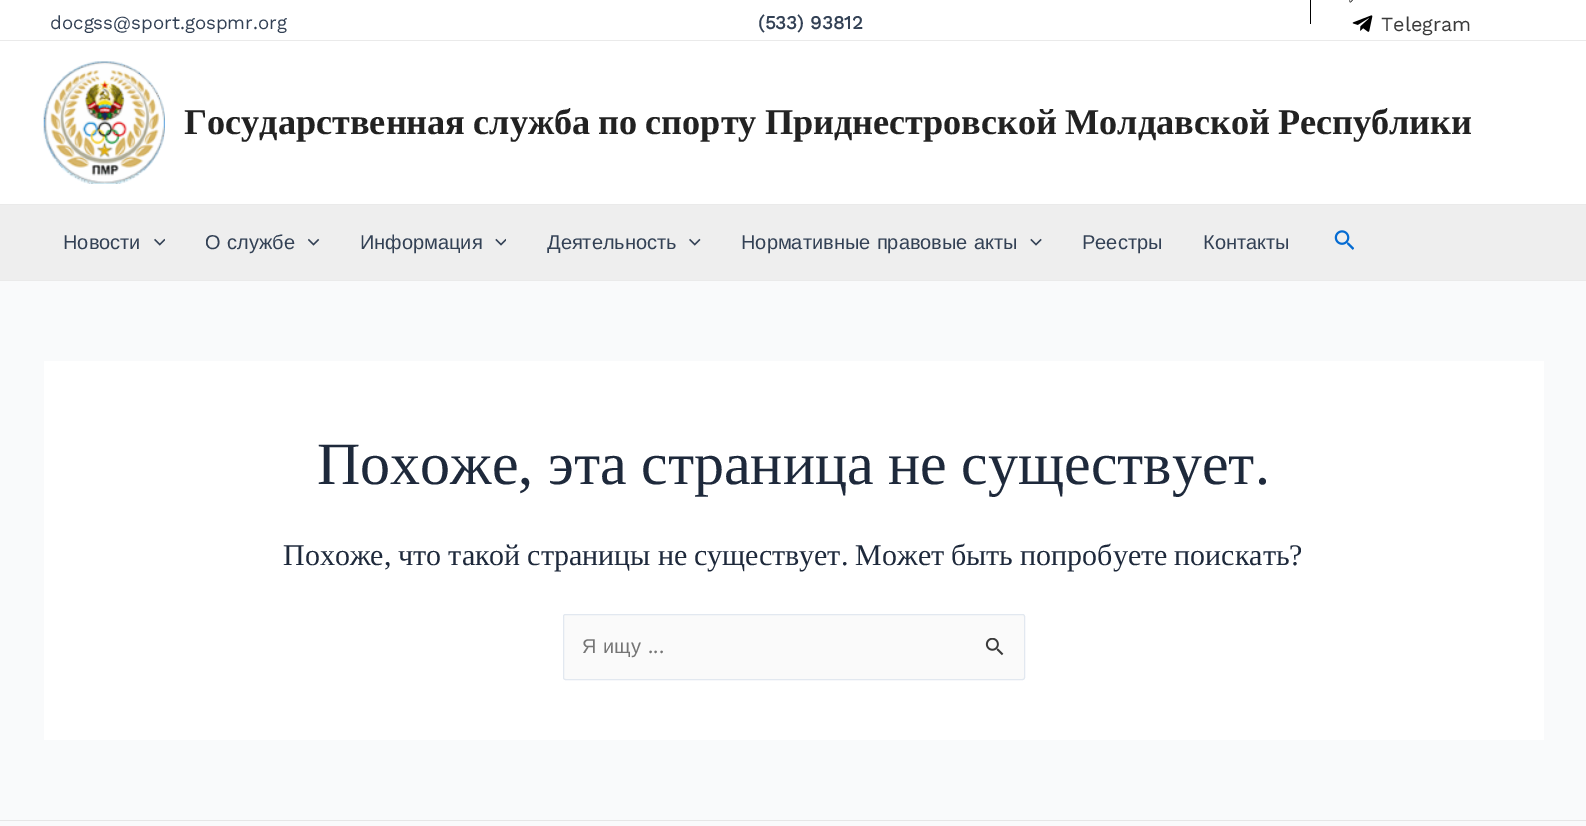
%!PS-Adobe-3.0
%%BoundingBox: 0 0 1586 826
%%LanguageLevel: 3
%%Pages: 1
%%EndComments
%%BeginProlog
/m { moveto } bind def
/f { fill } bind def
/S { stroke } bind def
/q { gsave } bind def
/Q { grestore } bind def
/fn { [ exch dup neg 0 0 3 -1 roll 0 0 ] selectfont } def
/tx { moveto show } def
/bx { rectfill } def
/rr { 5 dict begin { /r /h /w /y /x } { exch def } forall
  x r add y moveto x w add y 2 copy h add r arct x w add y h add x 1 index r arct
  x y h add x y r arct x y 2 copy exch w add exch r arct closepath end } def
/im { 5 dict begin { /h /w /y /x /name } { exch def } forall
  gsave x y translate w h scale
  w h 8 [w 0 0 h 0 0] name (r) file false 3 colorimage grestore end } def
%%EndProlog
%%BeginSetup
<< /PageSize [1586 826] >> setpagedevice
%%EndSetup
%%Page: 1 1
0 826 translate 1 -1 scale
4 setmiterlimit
0.976 0.98 0.984 setrgbcolor
0 0 1586 826 bx
1 setgray
0 0 1586 40 bx
0.918 setgray
0 40 1586 1 bx
/WorkSans-Regular 18.75 fn
0.2 0.255 0.333 setrgbcolor
(docgss@sport.gospmr.org) 50 29 tx
/WorkSans-Bold 18.75 fn
(\(533\) 93812) 758 29 tx
0 setgray
1310 0 1 24 bx
(image0.raw) 1349 0 4 3 im
(image1.raw) 1352 15 21 17 im
/WorkSans-Regular 20 fn
0.227 setgray
(Telegram) 1381 31 tx
1 setgray
0 41 1586 163 bx
0.918 setgray
0 204 1586 1 bx
(image2.raw) 43 61 122 123 im
/LiberationSerif-Bold 36.25 fn
0.133 setgray
184 134 m -1 0 32 (Государственная служба по спорту Приднестровской Молдавской Республики) widthshow
0.933 setgray
0 205 1586 75 bx
0.918 setgray
0 280 1586 1 bx
/LiberationSans-Regular 20 fn
0.2 0.255 0.333 setrgbcolor
(Новости) 63 249 tx
(image3.raw) 154 238 11 8 im
205 249 m 1 0 32 (О службе) widthshow
(image4.raw) 308 238 12 8 im
(Информация) 360 249 tx
(image5.raw) 495 238 11 8 im
(Деятельность) 547 249 tx
(image6.raw) 689 238 12 8 im
741 249 m 1 0 32 (Нормативные правовые акты) widthshow
(image7.raw) 1030 238 12 8 im
(Реестры) 1082 249 tx
(Контакты) 1203 249 tx
(image8.raw) 1334 230 20 20 im
1 setgray
44 361 1500 379 bx
/LiberationSerif-Regular 60 fn
0.118 0.161 0.231 setrgbcolor
317 484 m -0.5 0 32 (Похоже, эта страница не существует.) widthshow
/LiberationSerif-Regular 30 fn
283 565 m -0.5 0 32 (Похоже, что такой страницы не существует. Может быть попробуете поискать?) widthshow
0.98 setgray
563.5 614.5 461 65 2 rr q f Q
0.886 0.91 0.941 setrgbcolor
S
/LiberationSans-Regular 20 fn
0.459 setgray
582 653 m 1 0 32 (Я ищу) widthshow
/WorkSans-Regular 20 fn
(...) 648 653 tx
(image9.raw) 985 638 19 18 im
0.902 setgray
0 820 1586 1 bx
showpage
%%EOF
